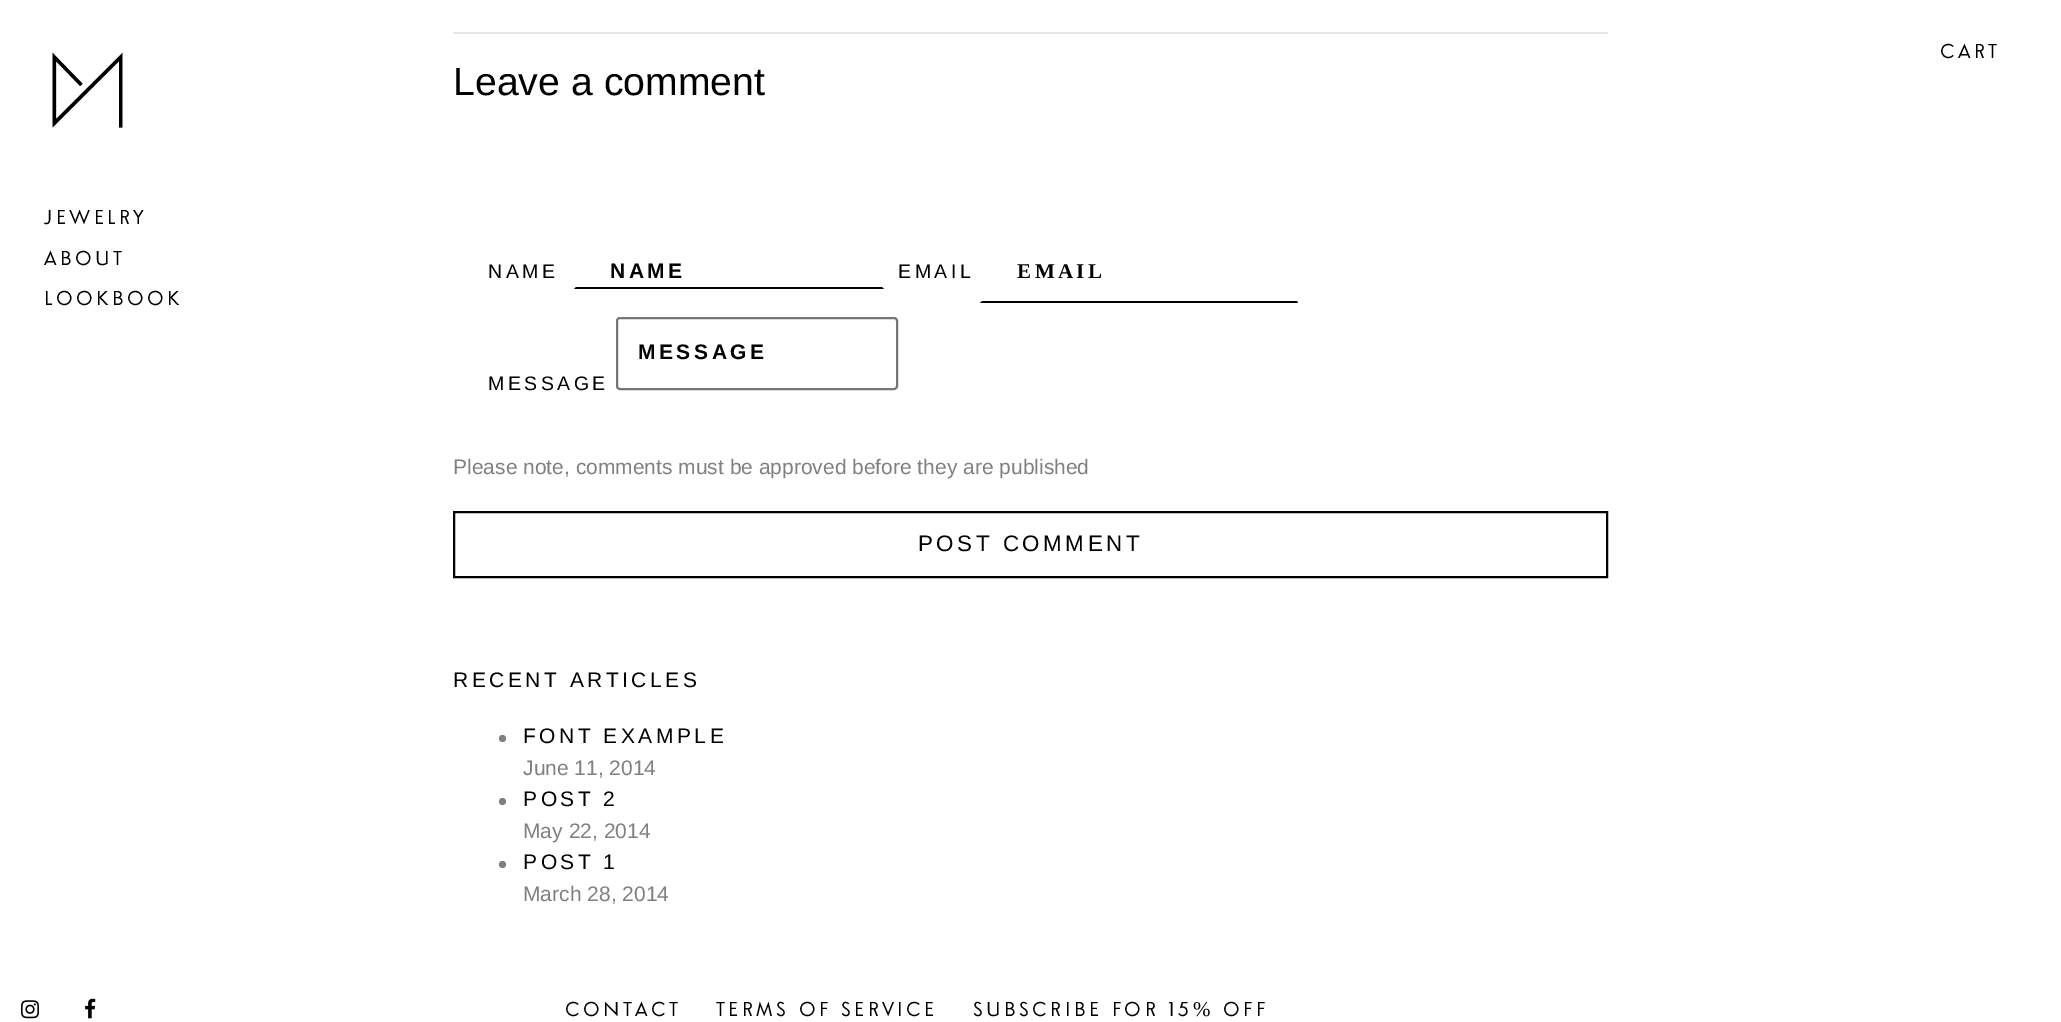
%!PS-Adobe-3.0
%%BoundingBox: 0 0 2061 1022
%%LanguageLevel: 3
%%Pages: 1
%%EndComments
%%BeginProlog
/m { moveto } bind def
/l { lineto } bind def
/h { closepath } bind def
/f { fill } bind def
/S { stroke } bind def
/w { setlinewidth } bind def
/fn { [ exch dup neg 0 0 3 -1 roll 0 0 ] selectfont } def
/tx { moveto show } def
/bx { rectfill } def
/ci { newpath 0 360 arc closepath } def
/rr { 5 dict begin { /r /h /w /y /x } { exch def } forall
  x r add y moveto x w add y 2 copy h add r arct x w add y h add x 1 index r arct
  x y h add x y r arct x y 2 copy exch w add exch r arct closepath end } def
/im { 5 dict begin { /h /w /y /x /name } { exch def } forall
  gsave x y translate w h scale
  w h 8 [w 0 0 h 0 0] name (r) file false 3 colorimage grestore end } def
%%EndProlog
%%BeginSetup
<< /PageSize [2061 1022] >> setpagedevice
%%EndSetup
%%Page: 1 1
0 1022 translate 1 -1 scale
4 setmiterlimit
1 setgray
0 0 2061 1022 bx
/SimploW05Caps-Regular 21 fn
0 setgray
1940 58 m 3.5 0 (CART) ashow
(image0.raw) 52 52 71 76 im
44 224 m 3.5 0 (JEWELRY) ashow
44 265 m 3.5 0 (ABOUT) ashow
44 305 m 3.5 0 (LOOKBOOK) ashow
0.902 setgray
453 32 1155 2 bx
/LiberationSans-Regular 39.25 fn
0 setgray
(Leave a comment) 453 95 tx
/LiberationSans-Regular 19.5 fn
488 278 m 3.5 0 (NAME) ashow
884 289 m 574 289 l 576 287 l 882 287 l h f
/LiberationSans-Bold 21 fn
610 278 m 3.5 0 (NAME) ashow
/LiberationSans-Regular 19.5 fn
898 278 m 3.5 0 (EMAIL) ashow
1298 303 m 980 303 l 982 301 l 1297 301 l h f
/LiberationSerif-Bold 21 fn
1017 278 m 3.5 0 (EMAIL) ashow
0.463 setgray
2 w
617 318 280 71 3 rr S
/LiberationSans-Bold 21 fn
0 setgray
638 359 m 3.5 0 (MESSAGE) ashow
/LiberationSans-Regular 19.5 fn
488 390 m 3.5 0 (MESSAGE) ashow
/LiberationSans-Regular 21 fn
0.502 setgray
(Please note, comments must be approved before they are published) 453 474 tx
0 setgray
454 512 1153 65 rectstroke
/LiberationSans-Regular 22.4 fn
918 551 m 3.5 0 (POST COMMENT) ashow
/LiberationSans-Regular 21 fn
453 687 m 3.5 0 (RECENT ARTICLES) ashow
0.502 setgray
502.5 738.5 3.5 ci f
0 setgray
523 743 m 3.5 0 (FONT EXAMPLE) ashow
0.502 setgray
(June 11, 2014) 523 775 tx
502.5 801.5 3.5 ci f
0 setgray
523 806 m 3.5 0 (POST 2) ashow
0.502 setgray
(May 22, 2014) 523 838 tx
502.5 864.5 3.5 ci f
0 setgray
523 869 m 3.5 0 (POST 1) ashow
0.502 setgray
(March 28, 2014) 523 901 tx
(image1.raw) 21 1000 18 19 im
(image2.raw) 85 998 11 21 im
/SimploW05Caps-Regular 21 fn
0 setgray
565 1016 m 3.5 0 (CONTACT) ashow
716 1016 m 3.5 0 (TERMS OF SERVICE) ashow
973 1016 m 3.5 0 (SUBSCRIBE FOR 15) ashow
/LiberationSerif-Regular 21 fn
1193 1016 m 3.5 0 (%) ashow
/SimploW05Caps-Regular 21 fn
1223 1016 m 3.5 0 (OFF) ashow
showpage
%%EOF
